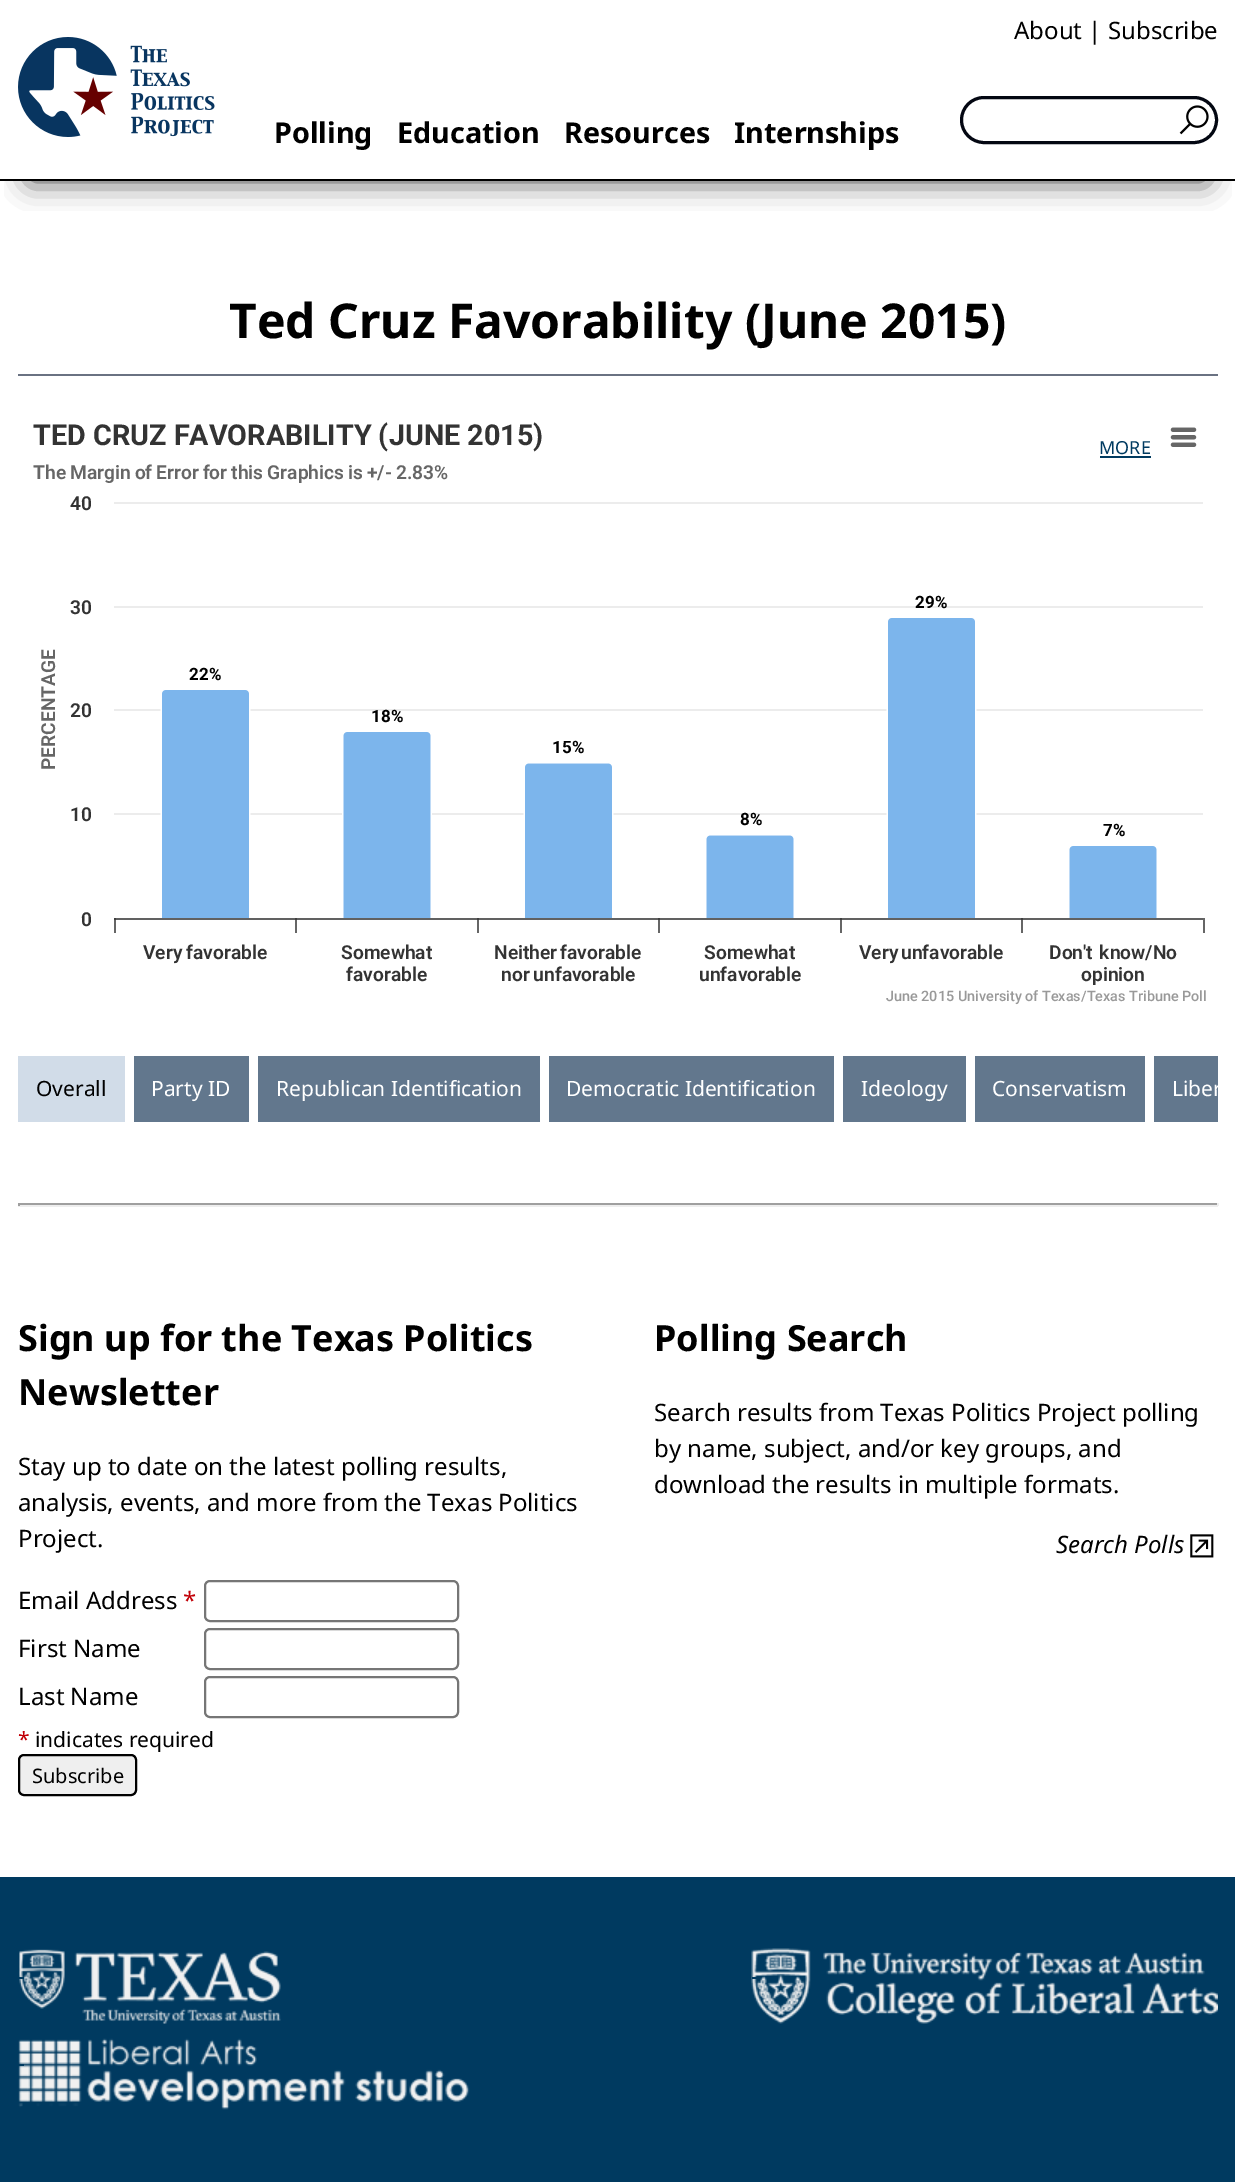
%!PS-Adobe-3.0
%%BoundingBox: 0 0 1235 2182
%%LanguageLevel: 3
%%Pages: 1
%%EndComments
%%BeginProlog
/m { moveto } bind def
/f { fill } bind def
/S { stroke } bind def
/q { gsave } bind def
/Q { grestore } bind def
/w { setlinewidth } bind def
/fn { [ exch dup neg 0 0 3 -1 roll 0 0 ] selectfont } def
/tx { moveto show } def
/bx { rectfill } def
/al { dup .setfillconstantalpha .setstrokeconstantalpha } def
/rr { 5 dict begin { /r /h /w /y /x } { exch def } forall
  x r add y moveto x w add y 2 copy h add r arct x w add y h add x 1 index r arct
  x y h add x y r arct x y 2 copy exch w add exch r arct closepath end } def
/sh { 12 dict begin { /a /b /q /h /w /y /x } { exch def } forall gsave /was 0 def
  9 -2 -9 { dup b mul 4 div /e exch def 1 sub .425 mul 2.718 exch exp 1 add a .99 .min exch div /now exch def
    1 1 now sub 1 was sub div sub al /was now def
    w h .min e 2 mul add 0 gt { x e sub y e sub w e 2 mul add h e 2 mul add
      q e add b .6 mul add w h .min 2 div e add .min 0 .max rr fill } if } for grestore end } def
/im { 5 dict begin { /h /w /y /x /name } { exch def } forall
  gsave x y translate w h scale
  w h 8 [w 0 0 h 0 0] name (r) file false 3 colorimage grestore end } def
%%EndProlog
%%BeginSetup
<< /PageSize [1235 2182] /PageUsesTransparency true >> setpagedevice
%%EndSetup
%%Page: 1 1
0 .pushpdf14devicefilter
0 2182 translate 1 -1 scale
4 setmiterlimit
1 setgray
0 0 1235 2182 bx
q
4 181 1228 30 rectclip
0.2 setgray
30 60 1176 120 0 15 1 sh
Q
0 setgray
0 179 1235 2 bx
/NotoSans-Regular 24 fn
(About | Subscribe) 1014 39 tx
(image0.raw) 18 37 197 100 im
/NotoSans-Bold 28.75 fn
(Polling) 274 143 tx
(Education) 397 143 tx
(Resources) 564 143 tx
(Internships) 734 143 tx
0.012 0.027 0.071 setrgbcolor
3 w
961.5 97.5 255 45 22.5 rr S
(image1.raw) 1179 105 30 30 im
0.416 0.447 0.51 setrgbcolor
18 374 1200 2 bx
/NotoSans-Bold 48 fn
0 setgray
(Ted Cruz Favorability \(June 2015\)) 229 338 tx
(image2.raw) 114 427 1091 506 im
/Roboto-Bold 28.75 fn
0.2 setgray
(TED CRUZ FAVORABILITY \(JUNE 2015\)) 33 445 tx
/Roboto-SemiBold 19.2 fn
0.4 setgray
33 479 m -0.75 0 32 (The Margin of Error for this Graphics is +/- 2.83%) widthshow
0.2 setgray
(40) 70 510 tx
(30) 70 614 tx
/Roboto-Bold 17 fn
0 setgray
(29%) 915 608 tx
/Roboto-SemiBold 19.2 fn
0.4 setgray
q 55 770 translate -90 rotate 0 0 m (PERCENTAGE) show Q
/Roboto-Bold 17 fn
0 setgray
(22%) 189 680 tx
/Roboto-SemiBold 19.2 fn
0.2 setgray
(20) 70 717 tx
/Roboto-Bold 17 fn
0 setgray
(18%) 371 722 tx
(15%) 552 753 tx
/Roboto-SemiBold 19.2 fn
0.2 setgray
(10) 70 821 tx
/Roboto-Bold 17 fn
0 setgray
(8%) 740 825 tx
(7%) 1103 836 tx
/Roboto-SemiBold 19.2 fn
0.2 setgray
(0) 81 926 tx
143 959 m -1 0 32 (Very favorable) widthshow
(Somewhat) 341 959 tx
494 959 m -2 0 32 (Neither favorable) widthshow
(Somewhat) 704 959 tx
859 959 m -2 0 32 (Very unfavorable) widthshow
1049 959 m 2 0 32 (Don't know/No) widthshow
(favorable) 346 981 tx
501 981 m -1 0 32 (nor unfavorable) widthshow
(unfavorable) 699 981 tx
(opinion) 1081 981 tx
/Roboto-Medium 14.4 fn
0.6 setgray
(June 2015 University of Texas/Texas Tribune Poll) 886 1001 tx
/NotoSans-Regular 18 fn
0 0.227 0.376 setrgbcolor
(MORE) 1099 454 tx
1100 456 51 2 bx
0.82 0.863 0.91 setrgbcolor
18 1056 107 66 bx
/NotoSans-Regular 21 fn
0 setgray
(Overall) 36 1096 tx
0.384 0.467 0.553 setrgbcolor
134 1056 115 66 bx
1 setgray
(Party ID) 151 1096 tx
0.384 0.467 0.553 setrgbcolor
258 1056 282 66 bx
1 setgray
(Republican Identification) 276 1096 tx
0.384 0.467 0.553 setrgbcolor
549 1056 285 66 bx
1 setgray
(Democratic Identification) 566 1096 tx
0.384 0.467 0.553 setrgbcolor
843 1056 123 66 bx
1 setgray
(Ideology) 861 1096 tx
0.384 0.467 0.553 setrgbcolor
975 1056 170 66 bx
1 setgray
(Conservatism) 992 1096 tx
0.384 0.467 0.553 setrgbcolor
1154 1056 64 66 bx
q
18 1032 1200 96 rectclip
1 setgray
(Liber) 1172 1096 tx
Q
0.624 setgray
18 1203 1200 2 bx
0.933 setgray
1217 1203 2 3 bx
18 1205 1200 2 bx
0.624 setgray
18 1203 2 3 bx
/NotoSans-Bold 36 fn
0 setgray
(Sign up for the Texas Politics) 18 1351 tx
(Newsletter) 18 1405 tx
/NotoSans-Regular 24 fn
(Stay up to date on the latest polling results,) 18 1475 tx
(analysis, events, and more from the Texas Politics) 18 1511 tx
(Project.) 18 1547 tx
(Email Address) 18 1609 tx
0.757 0 0.027 setrgbcolor
(*) 183 1609 tx
0.463 setgray
2 w
205 1581 253 40 5 rr S
0 setgray
(First Name) 18 1657 tx
0.463 setgray
205 1629 253 40 5 rr S
0 setgray
(Last Name) 18 1705 tx
0.463 setgray
205 1677 253 40 5 rr S
/NotoSans-Regular 21 fn
0.757 0 0.027 setrgbcolor
(*) 18 1747 tx
0 setgray
(indicates required) 35 1747 tx
0.937 setgray
19 1755 117 40 5 rr q f Q
0 setgray
S
/NotoSans-Regular 20 fn
(Subscribe) 32 1783 tx
/NotoSans-Bold 36 fn
(Polling Search) 654 1351 tx
/NotoSans-Regular 24 fn
(Search results from Texas Politics Project polling) 654 1421 tx
(by name, subject, and/or key groups, and) 654 1457 tx
(download the results in multiple formats.) 654 1493 tx
/NotoSans-Italic 24 fn
(Search Polls) 1056 1553 tx
(image3.raw) 1190 1534 24 24 im
0 0.227 0.376 setrgbcolor
0 1877 1235 305 bx
(image4.raw) 19 1949 262 75 im
18 1977 6 2 bx
(image5.raw) 751 1948 467 76 im
752 1977 6 2 bx
(image6.raw) 18 2038 452 72 im
18 2064 6 2 bx
.poppdf14devicefilter showpage
%%EOF
